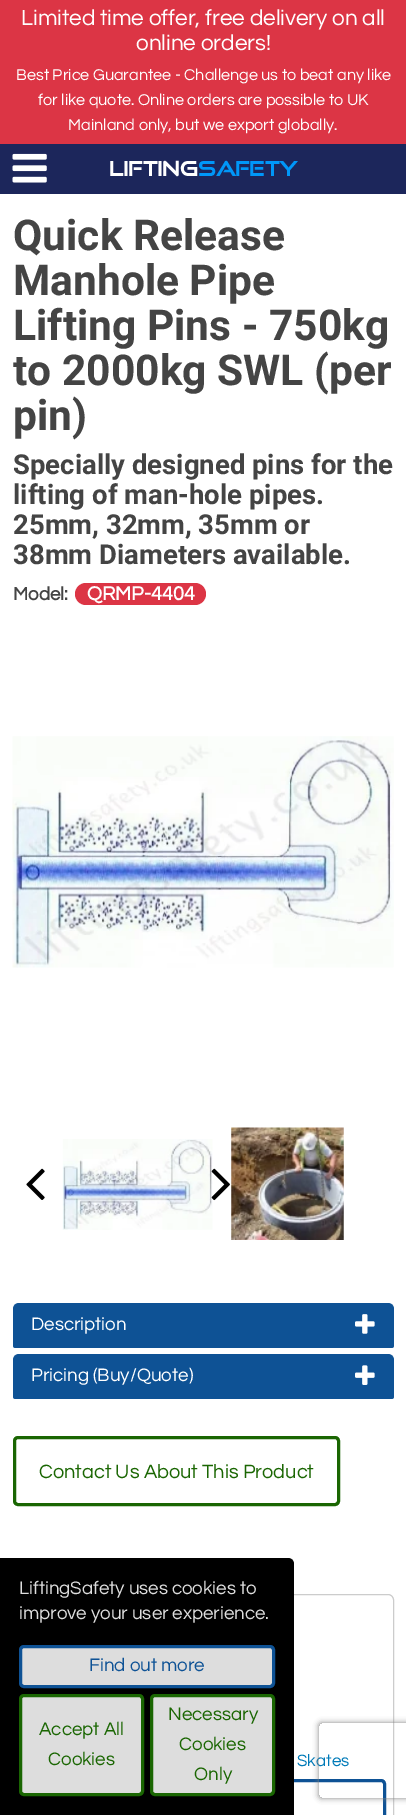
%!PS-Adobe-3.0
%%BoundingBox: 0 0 406 1815
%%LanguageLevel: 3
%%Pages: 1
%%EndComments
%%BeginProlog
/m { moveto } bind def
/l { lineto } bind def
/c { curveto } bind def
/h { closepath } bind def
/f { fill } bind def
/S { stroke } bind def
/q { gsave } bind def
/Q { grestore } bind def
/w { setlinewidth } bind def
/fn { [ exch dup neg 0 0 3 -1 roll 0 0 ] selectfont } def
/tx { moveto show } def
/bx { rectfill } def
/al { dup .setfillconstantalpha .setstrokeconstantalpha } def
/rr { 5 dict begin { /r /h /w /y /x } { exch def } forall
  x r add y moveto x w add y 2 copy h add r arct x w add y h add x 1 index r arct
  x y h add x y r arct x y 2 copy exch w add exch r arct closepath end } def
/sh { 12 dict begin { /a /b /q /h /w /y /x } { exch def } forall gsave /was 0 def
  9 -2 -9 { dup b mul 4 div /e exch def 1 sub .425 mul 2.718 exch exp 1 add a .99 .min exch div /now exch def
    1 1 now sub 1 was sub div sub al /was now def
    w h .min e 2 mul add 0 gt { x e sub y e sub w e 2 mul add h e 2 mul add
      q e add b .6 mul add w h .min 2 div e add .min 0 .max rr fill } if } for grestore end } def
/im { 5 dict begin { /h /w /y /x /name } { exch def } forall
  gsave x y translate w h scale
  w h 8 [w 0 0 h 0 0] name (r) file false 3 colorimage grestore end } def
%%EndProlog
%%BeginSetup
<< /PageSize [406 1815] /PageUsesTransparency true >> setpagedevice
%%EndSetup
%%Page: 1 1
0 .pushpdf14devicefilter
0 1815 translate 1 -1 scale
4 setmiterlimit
1 setgray
0 0 406 1815 bx
0.863 0.208 0.271 setrgbcolor
0 0 406 144 bx
/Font-Regular 22.5 fn
1 setgray
(Limited time offer, free delivery on all) 21 25 tx
(online orders!) 136 50 tx
/Font-Regular 16.25 fn
(Best Price Guarantee - Challenge us to beat any like) 16 80 tx
(for like quote. Online orders are possible to UK) 38 105 tx
(Mainland only, but we export globally.) 68 130 tx
0.11 0.149 0.357 setrgbcolor
0 144 406 50 bx
(image0.raw) 12 153 35 30 im
/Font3-Bold 20 fn
1 setgray
(LIFTING) 109 176 tx
0 0.592 0.976 setrgbcolor
(SAFETY) 198 176 tx
/Font-Bold 42.5 fn
0.267 setgray
(Quick Release) 13 250 tx
(Manhole Pipe) 13 295 tx
(Lifting Pins - 750kg) 13 340 tx
(to 2000kg SWL \(per) 13 385 tx
(pin\)) 13 430 tx
/Font-Bold 27.5 fn
(Specially designed pins for the) 13 474 tx
(lifting of man-hole pipes.) 13 504 tx
(25mm, 32mm, 35mm or) 13 534 tx
(38mm Diameters available.) 13 564 tx
/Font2-Bold 18.75 fn
(Model:) 13 600 tx
0.863 0.208 0.271 setrgbcolor
75 583 131 22 11 rr f
/Font2-Bold 20 fn
1 setgray
(QRMP-4404) 87 600 tx
(image1.raw) 12 736 382 232 im
(image2.raw) 26 1168 19 32 im
(image3.raw) 62 1139 151 91 im
(image4.raw) 231 1127 113 113 im
(image5.raw) 211 1168 19 33 im
0.055 0.322 0.584 setrgbcolor
19 1303 m 388 1303 l 391.5 1303 394 1305.5 394 1309 c 394 1345.5 l 394 1347 393 1348 391.5 1348 c 15.5 1348 l 14 1348 13 1347 13 1345.5 c 13 1309 l 13 1305.5 15.5 1303 19 1303 c h f
/Font-Regular 18.75 fn
1 setgray
(Description) 31 1330 tx
(image6.raw) 355 1314 20 20 im
0.055 0.322 0.584 setrgbcolor
19 1354 m 388 1354 l 391.5 1354 394 1356.5 394 1360 c 394 1396.5 l 394 1398 393 1399 391.5 1399 c 15.5 1399 l 14 1399 13 1398 13 1396.5 c 13 1360 l 13 1356.5 15.5 1354 19 1354 c h f
1 setgray
(Pricing \(Buy/Quote\)) 31 1381 tx
(image7.raw) 355 1365 20 20 im
0.102 0.4 0.008 setrgbcolor
3 w
14.5 1437.5 324 67 3.5 rr S
/Font-Regular 20 fn
(Contact Us About This Product) 39 1478 tx
0.8 setgray
1 w
13.5 1594.5 380 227 5.5 rr S
/Font-Regular 17 fn
0 0.478 0.722 setrgbcolor
(Skates) 297 1766 tx
0.055 0.322 0.584 setrgbcolor
3 w
21.5 1780.5 363 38 3.5 rr S
0 setgray
0 1558 m 288 1558 l 291.5 1558 294 1560.5 294 1564 c 294 1815 l 0 1815 l h f
/Font-Regular 18.75 fn
0.867 setgray
(LiftingSafety uses cookies to) 19 1594 tx
(improve your user experience.) 19 1619 tx
20.5 1646.5 253 40 3.5 rr q f Q
0.055 0.322 0.584 setrgbcolor
S
(Find out more) 89 1671 tx
0.867 setgray
20.5 1695.5 122 99 3.5 rr q f Q
0.102 0.4 0.008 setrgbcolor
S
(Accept All) 39 1735 tx
(Cookies) 48 1765 tx
0.867 setgray
151.5 1695.5 122 99 3.5 rr q f Q
0.102 0.4 0.008 setrgbcolor
S
(Necessary) 168 1720 tx
(Cookies) 179 1750 tx
(Only) 194 1780 tx
q
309 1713 m 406 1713 l 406 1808 l 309 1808 l h 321.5 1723 m 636.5 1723 l 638 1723 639 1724 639 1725.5 c 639 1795.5 l 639 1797 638 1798 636.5 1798 c 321.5 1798 l 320 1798 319 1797 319 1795.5 c 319 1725.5 l 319 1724 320 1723 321.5 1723 c h eoclip newpath
0.502 setgray
319 1723 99 75 2.5 3 1 sh
Q
.poppdf14devicefilter showpage
%%EOF
